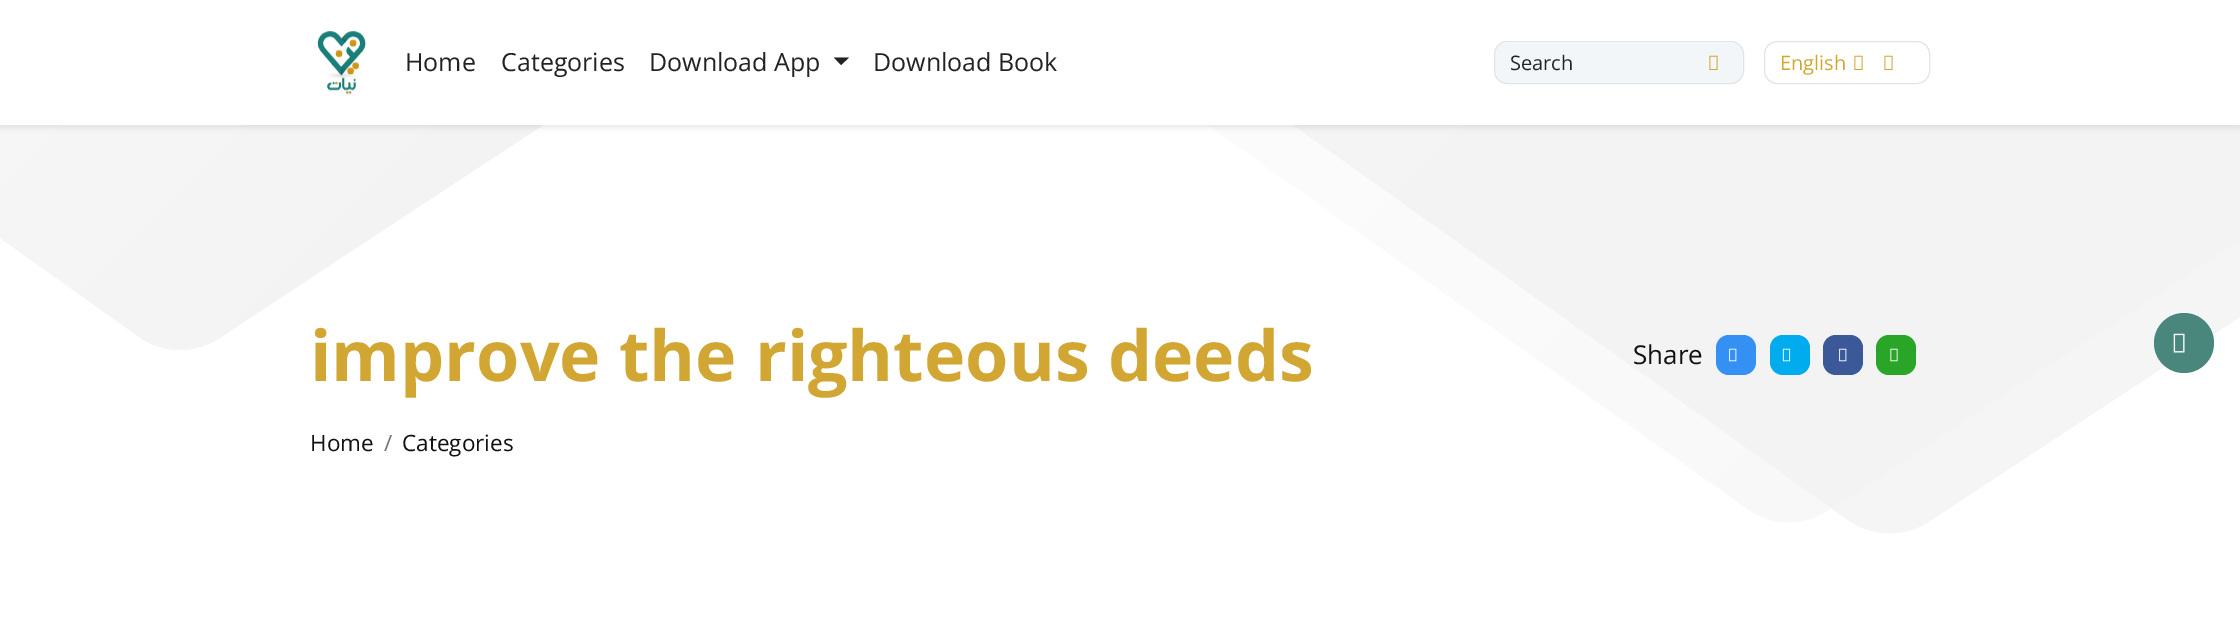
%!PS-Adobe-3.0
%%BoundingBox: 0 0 2240 622
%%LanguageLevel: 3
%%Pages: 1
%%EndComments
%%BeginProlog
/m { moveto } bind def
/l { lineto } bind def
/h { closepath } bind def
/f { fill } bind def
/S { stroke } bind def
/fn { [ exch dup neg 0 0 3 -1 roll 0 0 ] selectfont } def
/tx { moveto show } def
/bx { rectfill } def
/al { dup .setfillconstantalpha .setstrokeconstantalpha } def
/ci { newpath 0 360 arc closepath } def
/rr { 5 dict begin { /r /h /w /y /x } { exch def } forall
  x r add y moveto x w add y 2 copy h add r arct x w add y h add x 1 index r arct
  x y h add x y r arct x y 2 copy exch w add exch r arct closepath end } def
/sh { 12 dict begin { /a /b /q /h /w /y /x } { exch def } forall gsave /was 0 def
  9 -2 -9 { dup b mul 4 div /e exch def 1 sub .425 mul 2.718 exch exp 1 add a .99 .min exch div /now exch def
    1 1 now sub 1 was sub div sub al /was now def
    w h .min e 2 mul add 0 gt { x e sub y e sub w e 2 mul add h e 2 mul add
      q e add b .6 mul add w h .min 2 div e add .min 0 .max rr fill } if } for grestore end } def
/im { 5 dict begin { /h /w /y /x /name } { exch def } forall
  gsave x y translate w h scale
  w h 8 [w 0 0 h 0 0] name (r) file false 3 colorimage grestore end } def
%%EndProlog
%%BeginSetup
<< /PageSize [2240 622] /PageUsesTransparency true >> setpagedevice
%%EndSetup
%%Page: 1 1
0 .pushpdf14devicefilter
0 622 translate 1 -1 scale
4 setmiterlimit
1 setgray
0 0 2240 622 bx
(image3.raw) 0 125 2240 409 im
0 setgray
0 3 2240 125 0 2.5 0.07 sh
1 setgray
0 0 2240 125 bx
(image0.raw) 317 31 49 64 im
/OpenSans-Regular 25 fn
0.133 setgray
(Home) 405 71 tx
(Categories) 501 71 tx
(Download App) 649 71 tx
834 57.5 m 849 57.5 l 841 65 l h f
(Download Book) 873 71 tx
0.953 0.965 0.976 setrgbcolor
1495 43 248 40 11 rr f
0.878 0.89 0.906 setrgbcolor
1494.5 41.5 249 42 12.5 rr S
/OpenSans-Regular 20 fn
0.129 0.145 0.161 setrgbcolor
(Search) 1510 70 tx
(image1.raw) 1709 55 9 15 im
0.878 0.89 0.906 setrgbcolor
1764.5 41.5 165 42 12.5 rr S
0.82 0.651 0.196 setrgbcolor
(English) 1780 70 tx
(image2.raw) 1854 55 9 15 im
(image2.raw) 1884 55 9 15 im
/OpenSans-Bold 70 fn
(improve the righteous deeds) 310 381 tx
/OpenSans-Regular 26 fn
0.067 setgray
(Share) 1633 364 tx
0.204 0.565 0.953 setrgbcolor
1716 335 40 40 13 rr f
(image4.raw) 1729 348 8 14 im
0 0.675 0.929 setrgbcolor
1770 335 40 40 13 rr f
(image5.raw) 1782 348 9 14 im
0.231 0.349 0.596 setrgbcolor
1823 335 40 40 13 rr f
(image6.raw) 1839 348 8 14 im
0.161 0.651 0.157 setrgbcolor
1876 335 40 40 13 rr f
(image7.raw) 1890 348 8 14 im
/OpenSans-Regular 22.5 fn
0.067 setgray
(Home) 310 451 tx
0.424 0.459 0.49 setrgbcolor
(/) 384 451 tx
0.067 setgray
(Categories) 402 451 tx
0.286 0.529 0.486 setrgbcolor
2184 343 30 ci f
(image8.raw) 2173 333 12 20 im
.poppdf14devicefilter showpage
%%EOF
